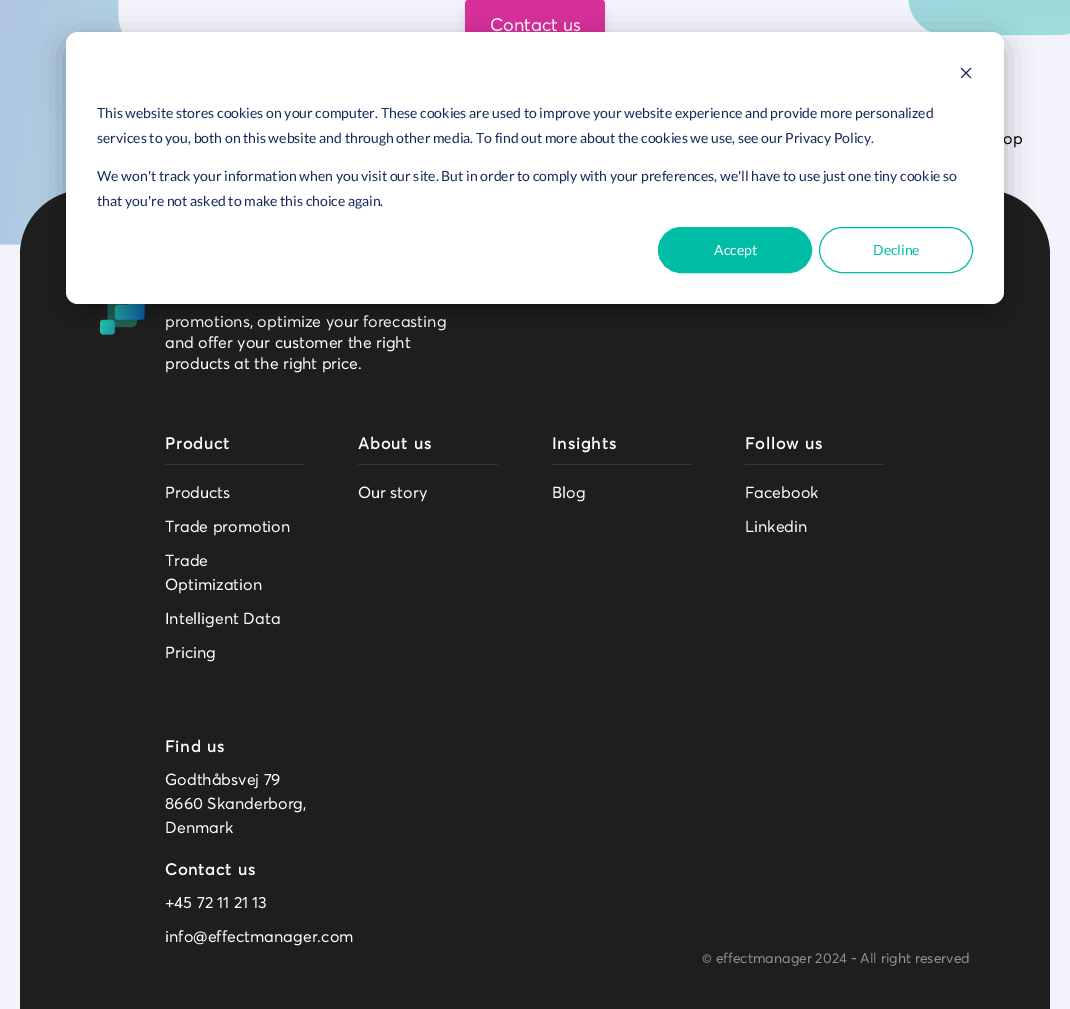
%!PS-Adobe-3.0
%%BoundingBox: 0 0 1070 1009
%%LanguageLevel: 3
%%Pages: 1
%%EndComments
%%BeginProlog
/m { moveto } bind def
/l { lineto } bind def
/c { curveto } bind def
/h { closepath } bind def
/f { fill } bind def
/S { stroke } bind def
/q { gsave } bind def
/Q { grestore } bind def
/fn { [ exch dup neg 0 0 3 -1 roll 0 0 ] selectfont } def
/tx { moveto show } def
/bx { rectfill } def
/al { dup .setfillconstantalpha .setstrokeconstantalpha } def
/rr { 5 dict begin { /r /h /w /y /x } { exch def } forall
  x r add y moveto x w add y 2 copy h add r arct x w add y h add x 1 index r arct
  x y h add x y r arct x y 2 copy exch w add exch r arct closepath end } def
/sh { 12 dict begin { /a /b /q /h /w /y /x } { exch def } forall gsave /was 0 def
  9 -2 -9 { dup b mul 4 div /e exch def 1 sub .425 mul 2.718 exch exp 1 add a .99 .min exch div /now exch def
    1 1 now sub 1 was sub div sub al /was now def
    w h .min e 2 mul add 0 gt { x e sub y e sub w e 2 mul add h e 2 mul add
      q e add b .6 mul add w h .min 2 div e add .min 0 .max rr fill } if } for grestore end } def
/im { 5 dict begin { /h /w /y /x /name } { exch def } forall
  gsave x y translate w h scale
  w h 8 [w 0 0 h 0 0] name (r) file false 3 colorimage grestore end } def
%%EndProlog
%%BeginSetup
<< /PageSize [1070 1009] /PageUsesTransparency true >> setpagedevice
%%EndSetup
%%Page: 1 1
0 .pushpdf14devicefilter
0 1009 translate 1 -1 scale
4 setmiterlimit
0.953 0.957 0.984 setrgbcolor
0 0 1070 1009 bx
(image0.raw) 0 0 122 245 im
(image1.raw) 908 0 162 36 im
0 setgray
465 9 140 51 5 5.5 0.1 sh
0.847 0.188 0.608 setrgbcolor
465 -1 140 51 5 rr f
/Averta-Regular 18 fn
1 setgray
(Contact us) 490 31 tx
/Averta-Regular 16 fn
0 setgray
(op) 1003 144 tx
0.118 setgray
85 190 m 985 190 l 1021 190 1050 219 1050 255 c 1050 1009 l 20 1009 l 20 255 l 20 219 49 190 85 190 c h f
(image2.raw) 100 304 45 31 im
1 setgray
(promotions, optimize your forecasting) 165 327 tx
(and offer your customer the right) 165 348 tx
(products at the right price.) 165 369 tx
0.208 setgray
165 464 140 1 bx
/Averta-Bold 16 fn
1 setgray
165 449 m 1 0 (Product) ashow
/Averta-Regular 16 fn
(Products) 165 498 tx
(Trade promotion) 165 532 tx
(Trade) 165 566 tx
(Optimization) 165 590 tx
(Intelligent Data) 165 624 tx
(Pricing) 165 658 tx
0.208 setgray
358 464 140 1 bx
/Averta-Bold 16 fn
1 setgray
358 449 m 1 0 (About us) ashow
/Averta-Regular 16 fn
(Our story) 358 498 tx
0.208 setgray
552 464 140 1 bx
/Averta-Bold 16 fn
1 setgray
552 449 m 1 0 (Insights) ashow
/Averta-Regular 16 fn
(Blog) 552 498 tx
0.208 setgray
745 464 140 1 bx
/Averta-Bold 16 fn
1 setgray
745 449 m 1 0 (Follow us) ashow
/Averta-Regular 16 fn
(Facebook) 745 498 tx
(Linkedin) 745 532 tx
/Averta-Bold 16 fn
165 752 m 1 0 (Find us) ashow
/Averta-Regular 16 fn
(Godthåbsvej 79) 165 785 tx
(8660 Skanderborg,) 165 809 tx
(Denmark) 165 833 tx
/Averta-Bold 16 fn
165 875 m 1 0 (Contact us) ashow
/Averta-Regular 16 fn
(+45 72 11 21 13) 165 908 tx
(info@effectmanager.com) 165 942 tx
/Averta-Regular 14 fn
0.561 setgray
(© effectmanager 2024 - All right reserved) 702 963 tx
0 setgray
66 40 938 272 12 14 0.28 sh
1 setgray
66 32 938 272 12 rr f
(image3.raw) 960 67 12 12 im
/Lato-Regular 14 fn
0.082 0.161 0.353 setrgbcolor
(This website stores cookies on your computer. These cookies are used to improve your website experience and provide more personalized) 97 118 tx
(services to you, both on this website and through other media. To find out more about the cookies we use, see our Privacy Policy.) 97 143 tx
(We won't track your information when you visit our site. But in order to comply with your preferences, we'll have to use just one tiny cookie so) 97 181 tx
(that you're not asked to make this choice again.) 97 206 tx
0 0.741 0.647 setrgbcolor
658.5 227.5 153 45 22.5 rr q f Q
S
1 setgray
(Accept) 714 255 tx
0 0.741 0.647 setrgbcolor
819.5 227.5 153 45 22.5 rr S
(Decline) 873 255 tx
.poppdf14devicefilter showpage
%%EOF
